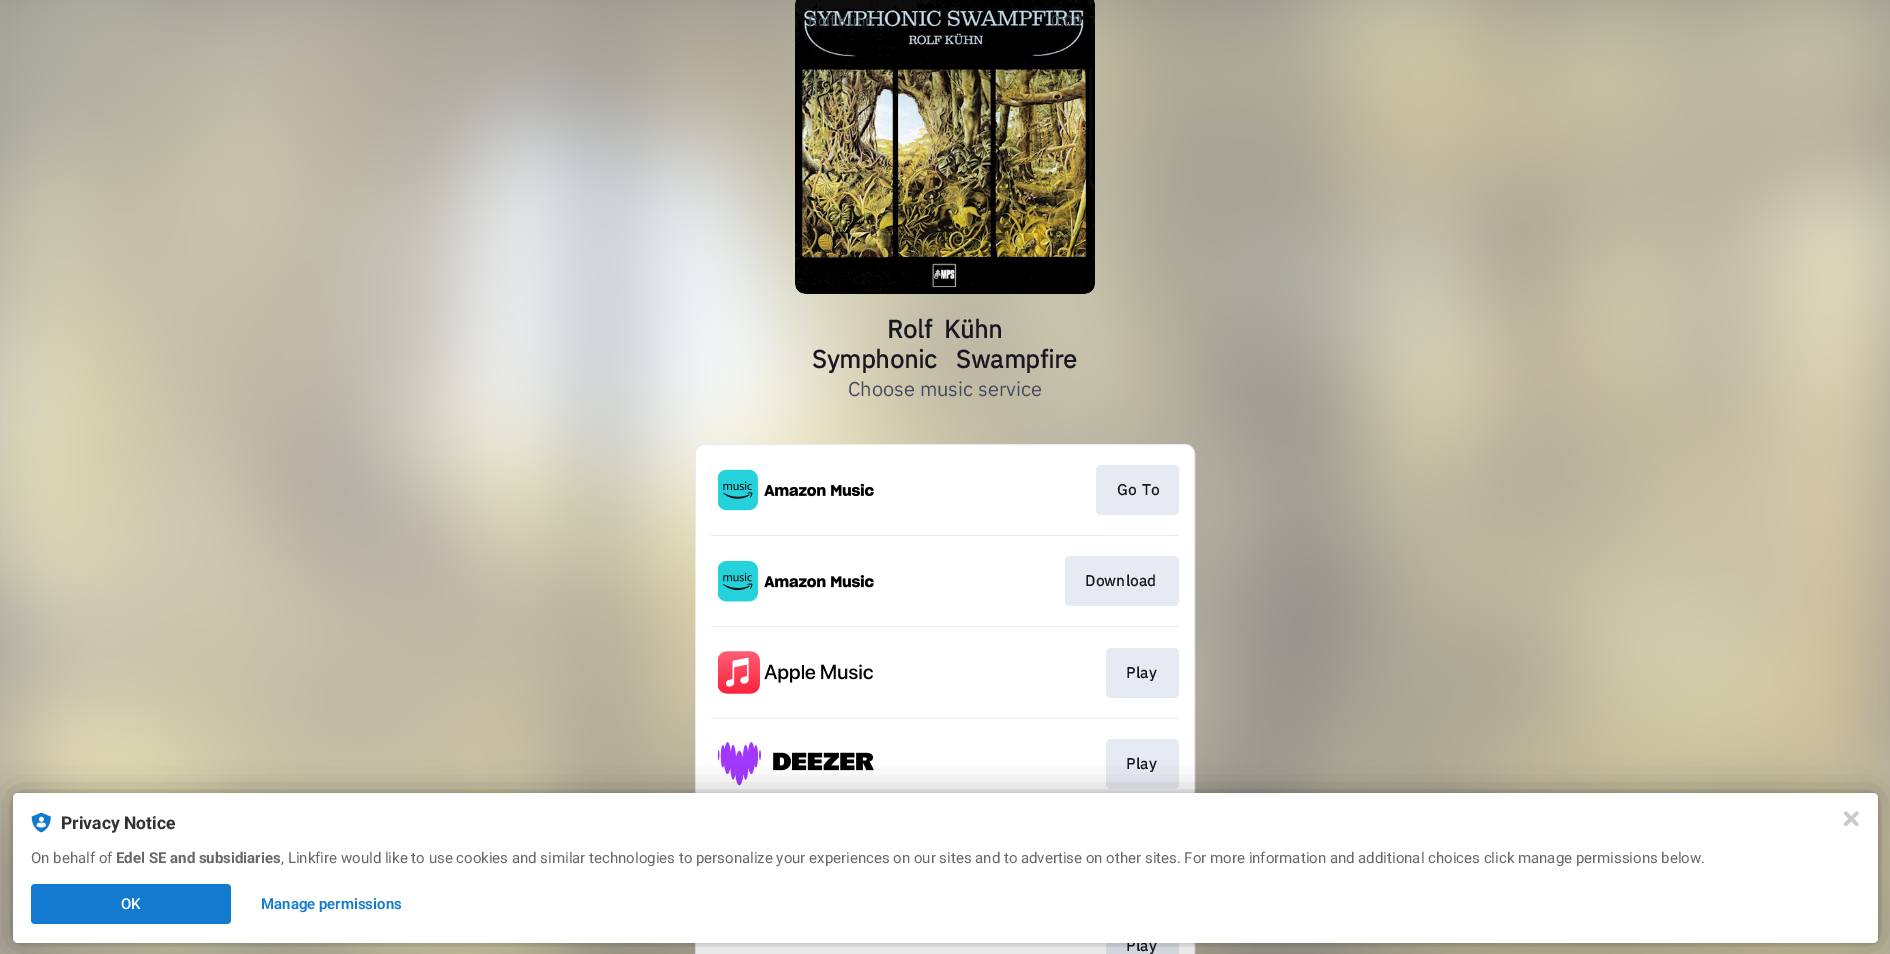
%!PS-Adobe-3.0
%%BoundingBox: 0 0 1890 954
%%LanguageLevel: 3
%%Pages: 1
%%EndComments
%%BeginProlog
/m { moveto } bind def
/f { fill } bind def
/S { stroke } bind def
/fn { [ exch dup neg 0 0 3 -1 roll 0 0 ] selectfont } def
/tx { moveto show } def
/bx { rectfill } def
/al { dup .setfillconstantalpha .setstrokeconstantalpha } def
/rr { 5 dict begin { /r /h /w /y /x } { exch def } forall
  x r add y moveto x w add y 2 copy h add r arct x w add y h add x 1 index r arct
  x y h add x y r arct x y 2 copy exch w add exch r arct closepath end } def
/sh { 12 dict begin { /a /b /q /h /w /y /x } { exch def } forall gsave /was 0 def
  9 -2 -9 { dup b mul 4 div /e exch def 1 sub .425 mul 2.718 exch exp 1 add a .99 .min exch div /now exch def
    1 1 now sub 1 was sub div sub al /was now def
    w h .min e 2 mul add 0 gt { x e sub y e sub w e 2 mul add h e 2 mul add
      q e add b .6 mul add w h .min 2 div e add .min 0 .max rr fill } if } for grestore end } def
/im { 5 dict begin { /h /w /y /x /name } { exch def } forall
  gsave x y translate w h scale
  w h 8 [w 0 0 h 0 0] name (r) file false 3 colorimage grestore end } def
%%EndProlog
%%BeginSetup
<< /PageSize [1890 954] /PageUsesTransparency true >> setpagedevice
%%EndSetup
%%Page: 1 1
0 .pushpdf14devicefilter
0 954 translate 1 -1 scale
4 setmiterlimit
1 setgray
0 0 1890 954 bx
(image0.raw) 0 0 1890 954 im
(image1.raw) 795 0 300 294 im
/IBMPlexSans-Regular 15 fn
0.29 0.325 0.345 setrgbcolor
(Rolf Kühn) 808 26 tx
0.267 0.302 0.322 setrgbcolor
(0:00) 1051 26 tx
/IBMPlexSans-Bold 25 fn
0.094 0.09 0.129 setrgbcolor
887 338 m 6 0 32 (Rolf Kühn) widthshow
812 368 m 14 0 32 (Symphonic Swampfire) widthshow
/IBMPlexSans-Regular 20 fn
0.271 0.294 0.373 setrgbcolor
(Choose music service) 848 396 tx
0.902 0.918 0.949 setrgbcolor
695.5 444.5 499 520 9.5 rr S
1 setgray
696 445 498 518 9 rr f
(image2.raw) 718 469 156 42 im
0.902 0.918 0.949 setrgbcolor
1096 465 83 50 5 rr f
/IBMPlexSans-Bold 15 fn
0.094 0.09 0.129 setrgbcolor
1117 495 m 1 0 32 0.5 0 (Go To) awidthshow
0.902 0.918 0.949 setrgbcolor
711 535 468 1 bx
(image3.raw) 718 561 156 41 im
1065 556 114 50 5 rr f
0.094 0.09 0.129 setrgbcolor
1085 586 m 0.5 0 (Download) ashow
0.902 0.918 0.949 setrgbcolor
711 626 468 1 bx
(image4.raw) 718 651 155 43 im
1106 648 73 50 5 rr f
0.094 0.09 0.129 setrgbcolor
1126 678 m 0.5 0 (Play) ashow
0.902 0.918 0.949 setrgbcolor
711 718 468 1 bx
(image5.raw) 718 742 156 44 im
1106 739 73 50 5 rr f
0.094 0.09 0.129 setrgbcolor
1126 769 m 0.5 0 (Play) ashow
0.902 0.918 0.949 setrgbcolor
1106 943 73 11 bx
0.094 0.09 0.129 setrgbcolor
1126 951 m 0.5 0 (Play) ashow
0 setgray
13 793 1865 150 5 2.5 0.12 sh
13 793 1865 150 5 15 0.3 sh
1 setgray
13 793 1865 150 5 rr f
(image6.raw) 31 813 20 20 im
/Roboto-Bold 17.5 fn
0.196 setgray
(Privacy Notice) 61 829 tx
/Roboto-Regular 15 fn
0.408 setgray
(On behalf of) 31 863 tx
/Roboto-Bold 15 fn
(Edel SE and subsidiaries) 116 863 tx
/Roboto-Regular 15 fn
(, Linkfire would like to use cookies and similar technologies to personalize your experiences on our sites and to advertise on other sites. For more information and additional choices click manage permissions below.) 281 863 tx
0.075 0.482 0.812 setrgbcolor
31 884 200 40 4 rr f
/Roboto-Medium 15 fn
1 setgray
(OK) 121 909 tx
/Roboto-SemiBold 15 fn
0.075 0.482 0.812 setrgbcolor
(Manage permissions) 261 909 tx
(image7.raw) 1844 811 15 15 im
.poppdf14devicefilter showpage
%%EOF
